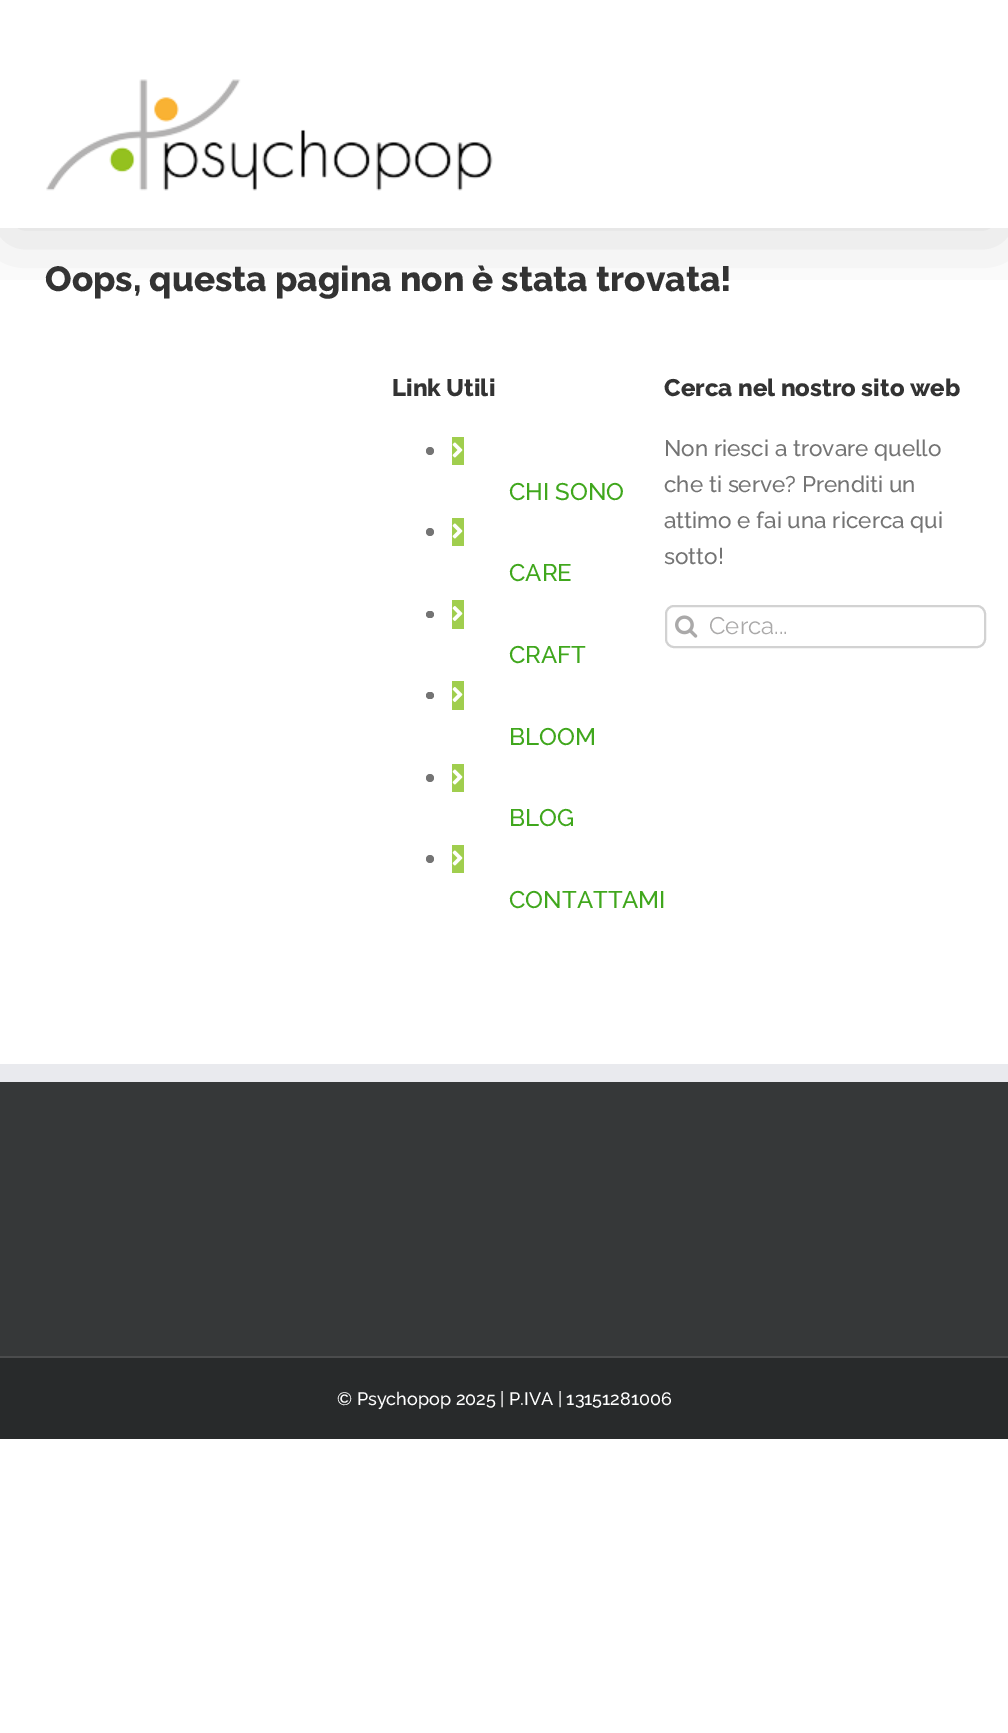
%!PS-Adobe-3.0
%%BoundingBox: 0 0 1008 1733
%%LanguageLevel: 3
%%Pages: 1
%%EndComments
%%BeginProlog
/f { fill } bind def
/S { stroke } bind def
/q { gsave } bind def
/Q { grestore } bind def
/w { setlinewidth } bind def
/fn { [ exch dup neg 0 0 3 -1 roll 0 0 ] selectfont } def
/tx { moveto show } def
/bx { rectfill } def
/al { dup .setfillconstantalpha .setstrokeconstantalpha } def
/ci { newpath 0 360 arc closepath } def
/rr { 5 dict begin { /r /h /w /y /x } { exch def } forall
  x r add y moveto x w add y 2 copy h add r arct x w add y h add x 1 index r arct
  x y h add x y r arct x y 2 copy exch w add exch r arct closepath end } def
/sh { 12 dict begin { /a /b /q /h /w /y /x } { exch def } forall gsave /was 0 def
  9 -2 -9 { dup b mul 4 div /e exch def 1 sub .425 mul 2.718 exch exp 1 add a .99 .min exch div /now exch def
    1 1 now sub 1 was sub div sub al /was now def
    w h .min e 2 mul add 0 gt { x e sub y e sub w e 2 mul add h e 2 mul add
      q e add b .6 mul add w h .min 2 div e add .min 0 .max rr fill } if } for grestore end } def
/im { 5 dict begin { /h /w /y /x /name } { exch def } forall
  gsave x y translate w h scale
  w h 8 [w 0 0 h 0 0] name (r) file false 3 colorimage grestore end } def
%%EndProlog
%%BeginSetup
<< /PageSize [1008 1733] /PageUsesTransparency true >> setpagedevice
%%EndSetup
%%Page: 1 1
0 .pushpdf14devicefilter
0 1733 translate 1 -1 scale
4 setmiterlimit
1 setgray
0 0 1008 1733 bx
q
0 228 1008 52 rectclip
0 setgray
3 18 1002 222 0 37.5 0.14 sh
Q
(image0.raw) 46 79 447 112 im
/Raleway-ExtraBold 35 fn
0.2 setgray
(Oops, questa pagina non è stata trovata!) 45 291 tx
/Raleway-ExtraBold 24 fn
(Link Utili) 392 396 tx
0.455 setgray
430 451 4 ci f
0.627 0.808 0.306 setrgbcolor
452 437 12 28 bx
(image1.raw) 452 442 11 16 im
/Raleway-Medium 24 fn
0.251 0.655 0.114 setrgbcolor
(CHI SONO) 509 500 tx
0.455 setgray
430 532 4 ci f
0.627 0.808 0.306 setrgbcolor
452 518 12 28 bx
(image1.raw) 452 523 11 16 im
0.251 0.655 0.114 setrgbcolor
(CARE) 509 581 tx
0.455 setgray
426 611 8 7 3.5 rr f
0.627 0.808 0.306 setrgbcolor
452 600 12 29 bx
(image2.raw) 452 606 11 15 im
0.251 0.655 0.114 setrgbcolor
(CRAFT) 509 663 tx
0.455 setgray
426 692 8 7 3.5 rr f
0.627 0.808 0.306 setrgbcolor
452 681 12 29 bx
(image2.raw) 452 687 11 15 im
0.251 0.655 0.114 setrgbcolor
(BLOOM) 509 745 tx
0.455 setgray
430 778 4 ci f
0.627 0.808 0.306 setrgbcolor
452 764 12 28 bx
(image1.raw) 452 769 11 16 im
0.251 0.655 0.114 setrgbcolor
(BLOG) 509 826 tx
0.455 setgray
430 859 4 ci f
0.627 0.808 0.306 setrgbcolor
452 845 12 28 bx
(image1.raw) 452 850 11 16 im
0.251 0.655 0.114 setrgbcolor
(CONTATTAMI) 509 908 tx
/Raleway-ExtraBold 24 fn
0.2 setgray
(Cerca nel nostro sito web) 664 396 tx
/Raleway-Medium 22.5 fn
0.455 setgray
(Non riesci a trovare quello) 664 456 tx
(che ti serve? Prenditi un) 664 492 tx
(attimo e fai una ricerca qui) 664 528 tx
(sotto!) 664 564 tx
0.824 setgray
2 w
666 606 319 41 8 rr S
(image3.raw) 675 615 23 23 im
/Raleway-Regular 24 fn
0.667 0.663 0.663 setrgbcolor
(Cerca...) 709 634 tx
0.212 0.22 0.224 setrgbcolor
0 1082 1008 274 bx
0.914 0.918 0.933 setrgbcolor
0 1064 1008 18 bx
0.157 0.165 0.169 setrgbcolor
0 1358 1008 81 bx
0.294 0.298 0.302 setrgbcolor
0 1356 1008 2 bx
/Raleway-Medium 18 fn
1 setgray
(© Psychopop 2025 | P.IVA | 13151281006) 337 1405 tx
.poppdf14devicefilter showpage
%%EOF
